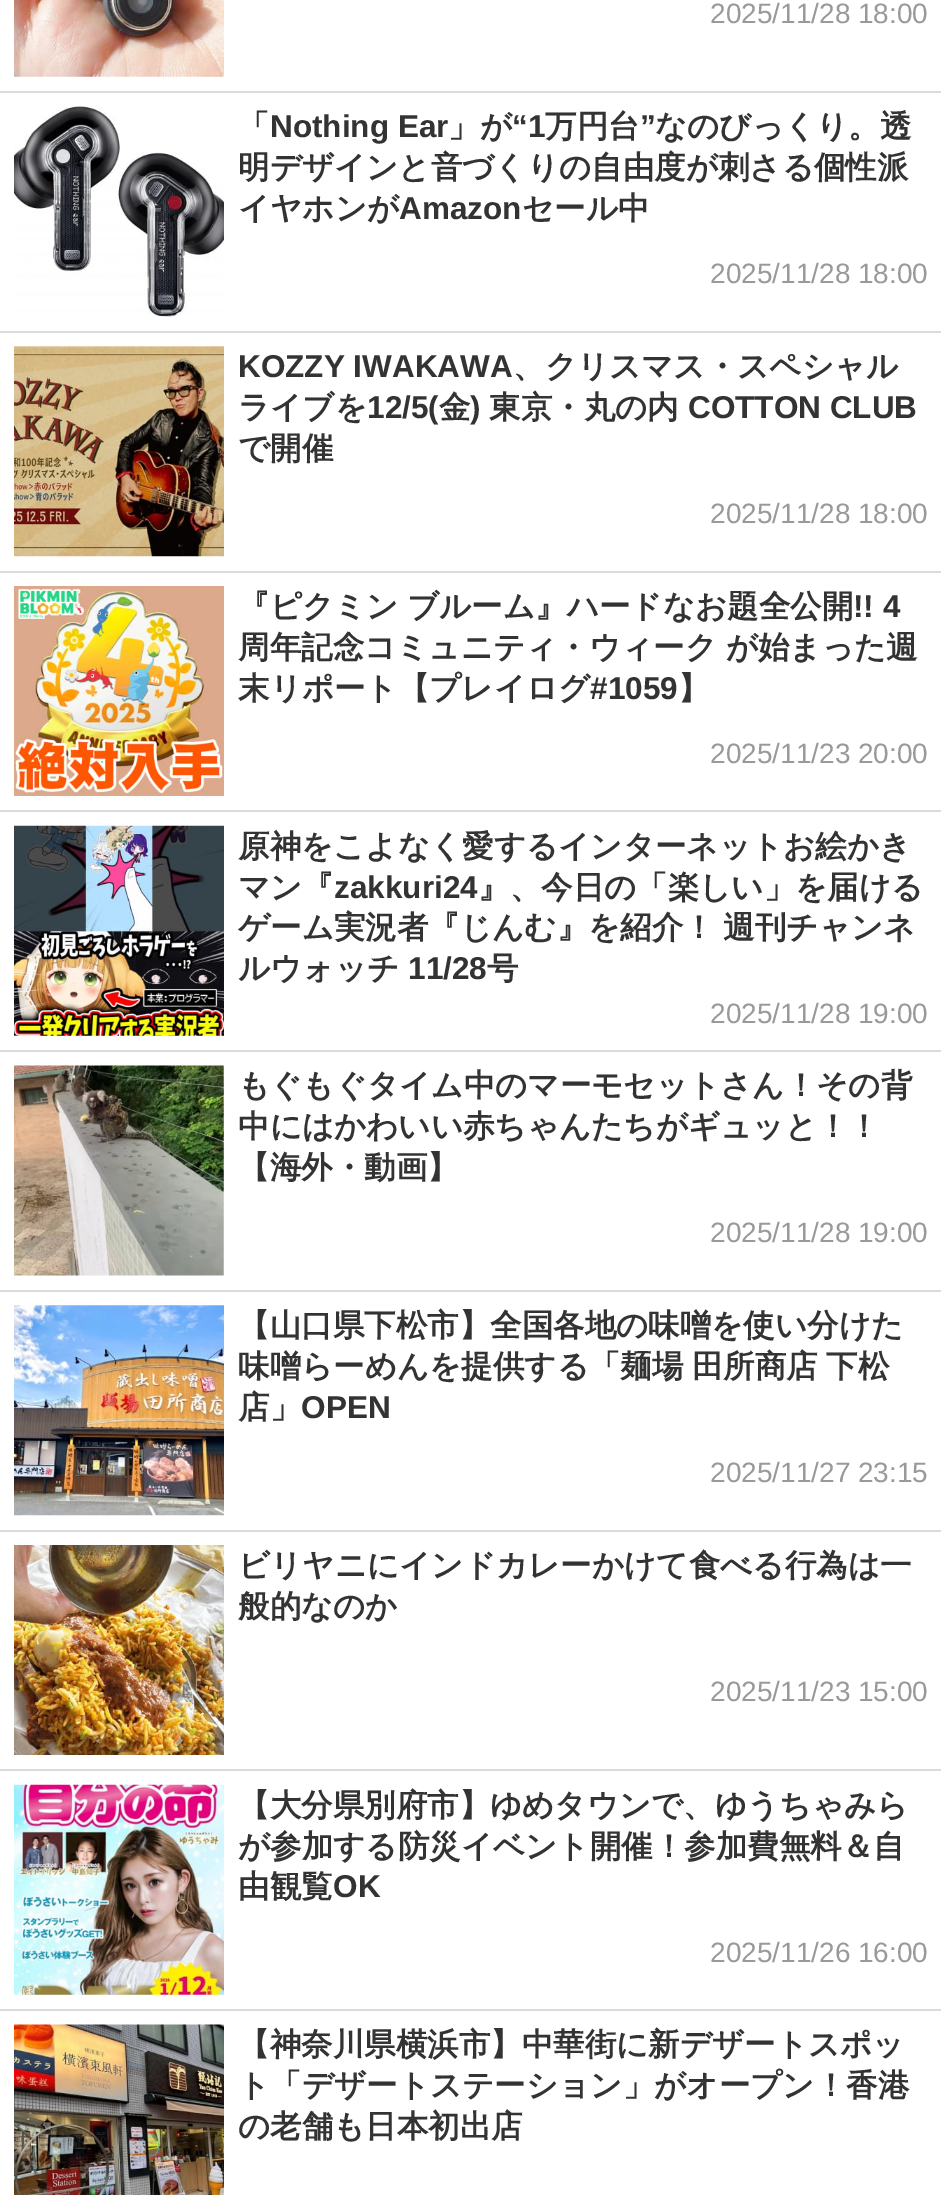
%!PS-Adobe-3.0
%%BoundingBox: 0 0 941 2195
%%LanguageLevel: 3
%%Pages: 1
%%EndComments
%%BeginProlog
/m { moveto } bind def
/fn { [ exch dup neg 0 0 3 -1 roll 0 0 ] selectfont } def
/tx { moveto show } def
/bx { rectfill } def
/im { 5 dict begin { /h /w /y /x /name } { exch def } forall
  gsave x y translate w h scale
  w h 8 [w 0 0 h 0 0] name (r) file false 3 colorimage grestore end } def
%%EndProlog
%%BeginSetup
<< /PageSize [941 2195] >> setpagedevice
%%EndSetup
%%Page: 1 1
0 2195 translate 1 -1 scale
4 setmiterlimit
1 setgray
0 0 941 2195 bx
0.859 setgray
0 91 941 2 bx
(image0.raw) 14 0 210 77 im
/LiberationSans-Regular 28 fn
0.6 setgray
(2025/11/28 18:00) 710 23 tx
0.859 setgray
0 331 941 2 bx
(image1.raw) 14 106 210 211 im
/WenQuanYiZenHei-Bold 31.5 fn
0.2 setgray
(「) 238 137 tx
/LiberationSans-Bold 31.5 fn
(Nothing Ear) 270 137 tx
/WenQuanYiZenHei-Bold 31.5 fn
(」が) 448 137 tx
/LiberationSans-Bold 31.5 fn
(“1) 512 137 tx
/WenQuanYiZenHei-Bold 31.5 fn
(万円台) 545 137 tx
/LiberationSans-Bold 31.5 fn
(”) 640 137 tx
/WenQuanYiZenHei-Bold 31.5 fn
(なのびっくり。透) 655 137 tx
(明デザインと音づくりの自由度が刺さる個性派) 238 178 tx
(イヤホンが) 238 219 tx
/LiberationSans-Bold 31.5 fn
(Amazon) 399 219 tx
/WenQuanYiZenHei-Bold 31.5 fn
(セール中) 522 219 tx
/LiberationSans-Regular 28 fn
0.6 setgray
(2025/11/28 18:00) 710 283 tx
0.859 setgray
0 571 941 2 bx
(image2.raw) 14 346 210 211 im
/LiberationSans-Bold 31.5 fn
0.2 setgray
(KOZZY IWAKAWA) 238 377 tx
/WenQuanYiZenHei-Bold 31.5 fn
(、クリスマス・スペシャル) 513 377 tx
(ライブを) 238 418 tx
/LiberationSans-Bold 31.5 fn
(12/5\() 367 418 tx
/WenQuanYiZenHei-Bold 31.5 fn
(金) 439 418 tx
/LiberationSans-Bold 31.5 fn
(\)) 470 418 tx
/WenQuanYiZenHei-Bold 31.5 fn
(東京・丸の内) 489 418 tx
/LiberationSans-Bold 31.5 fn
(COTTON CLUB) 688 418 tx
/WenQuanYiZenHei-Bold 31.5 fn
(で開催) 238 459 tx
/LiberationSans-Regular 28 fn
0.6 setgray
(2025/11/28 18:00) 710 523 tx
0.859 setgray
0 810 941 2 bx
(image3.raw) 14 586 210 210 im
/WenQuanYiZenHei-Bold 31.5 fn
0.2 setgray
(『ピクミン) 238 617 tx
(ブルーム』ハードなお題全公開) 407 617 tx
/LiberationSans-Bold 31.5 fn
(!! 4) 853 617 tx
/WenQuanYiZenHei-Bold 31.5 fn
238 658 m -1 0 32 (周年記念コミュニティ・ウィーク が始まった週) widthshow
(末リポート【プレイログ) 238 699 tx
/LiberationSans-Bold 31.5 fn
(#1059) 590 699 tx
/WenQuanYiZenHei-Bold 31.5 fn
(】) 678 699 tx
/LiberationSans-Regular 28 fn
0.6 setgray
(2025/11/23 20:00) 710 763 tx
0.859 setgray
0 1050 941 2 bx
(image4.raw) 14 825 210 211 im
/WenQuanYiZenHei-Bold 31.5 fn
0.2 setgray
(原神をこよなく愛するインターネットお絵かき) 238 857 tx
(マン『) 238 898 tx
/LiberationSans-Bold 31.5 fn
(zakkuri24) 334 898 tx
/WenQuanYiZenHei-Bold 31.5 fn
(』、今日の「楽しい」を届ける) 478 898 tx
238 938 m -1 0 32 (ゲーム実況者『じんむ』を紹介！ 週刊チャンネ) widthshow
(ルウォッチ) 238 979 tx
/LiberationSans-Bold 31.5 fn
(11/28) 408 979 tx
/WenQuanYiZenHei-Bold 31.5 fn
(号) 487 979 tx
/LiberationSans-Regular 28 fn
0.6 setgray
(2025/11/28 19:00) 710 1023 tx
0.859 setgray
0 1290 941 2 bx
(image5.raw) 14 1065 210 211 im
/WenQuanYiZenHei-Bold 31.5 fn
0.2 setgray
(もぐもぐタイム中のマーモセットさん！その背) 238 1096 tx
(中にはかわいい赤ちゃんたちがギュッと！！) 238 1137 tx
(【海外・動画】) 238 1178 tx
/LiberationSans-Regular 28 fn
0.6 setgray
(2025/11/28 19:00) 710 1242 tx
0.859 setgray
0 1530 941 2 bx
(image6.raw) 14 1305 210 211 im
/WenQuanYiZenHei-Bold 31.5 fn
0.2 setgray
(【山口県下松市】全国各地の味噌を使い分けた) 238 1336 tx
238 1377 m -1 0 32 (味噌らーめんを提供する「麺場 田所商店 下松) widthshow
(店」) 238 1418 tx
/LiberationSans-Bold 31.5 fn
(OPEN) 301 1418 tx
/LiberationSans-Regular 28 fn
0.6 setgray
(2025/11/27 23:15) 710 1482 tx
0.859 setgray
0 1769 941 2 bx
(image7.raw) 14 1545 210 210 im
/WenQuanYiZenHei-Bold 31.5 fn
0.2 setgray
(ビリヤニにインドカレーかけて食べる行為は一) 238 1576 tx
(般的なのか) 238 1617 tx
/LiberationSans-Regular 28 fn
0.6 setgray
(2025/11/23 15:00) 710 1701 tx
0.859 setgray
0 2009 941 2 bx
(image8.raw) 14 1784 210 211 im
/WenQuanYiZenHei-Bold 31.5 fn
0.2 setgray
(【大分県別府市】ゆめタウンで、ゆうちゃみら) 238 1816 tx
(が参加する防災イベント開催！参加費無料＆自) 238 1857 tx
(由観覧) 238 1897 tx
/LiberationSans-Bold 31.5 fn
(OK) 333 1897 tx
/LiberationSans-Regular 28 fn
0.6 setgray
(2025/11/26 16:00) 710 1962 tx
(image9.raw) 14 2024 210 171 im
/WenQuanYiZenHei-Bold 31.5 fn
0.2 setgray
(【神奈川県横浜市】中華街に新デザートスポッ) 238 2055 tx
(ト「デザートステーション」がオープン！香港) 238 2096 tx
(の老舗も日本初出店) 238 2137 tx
showpage
%%EOF
